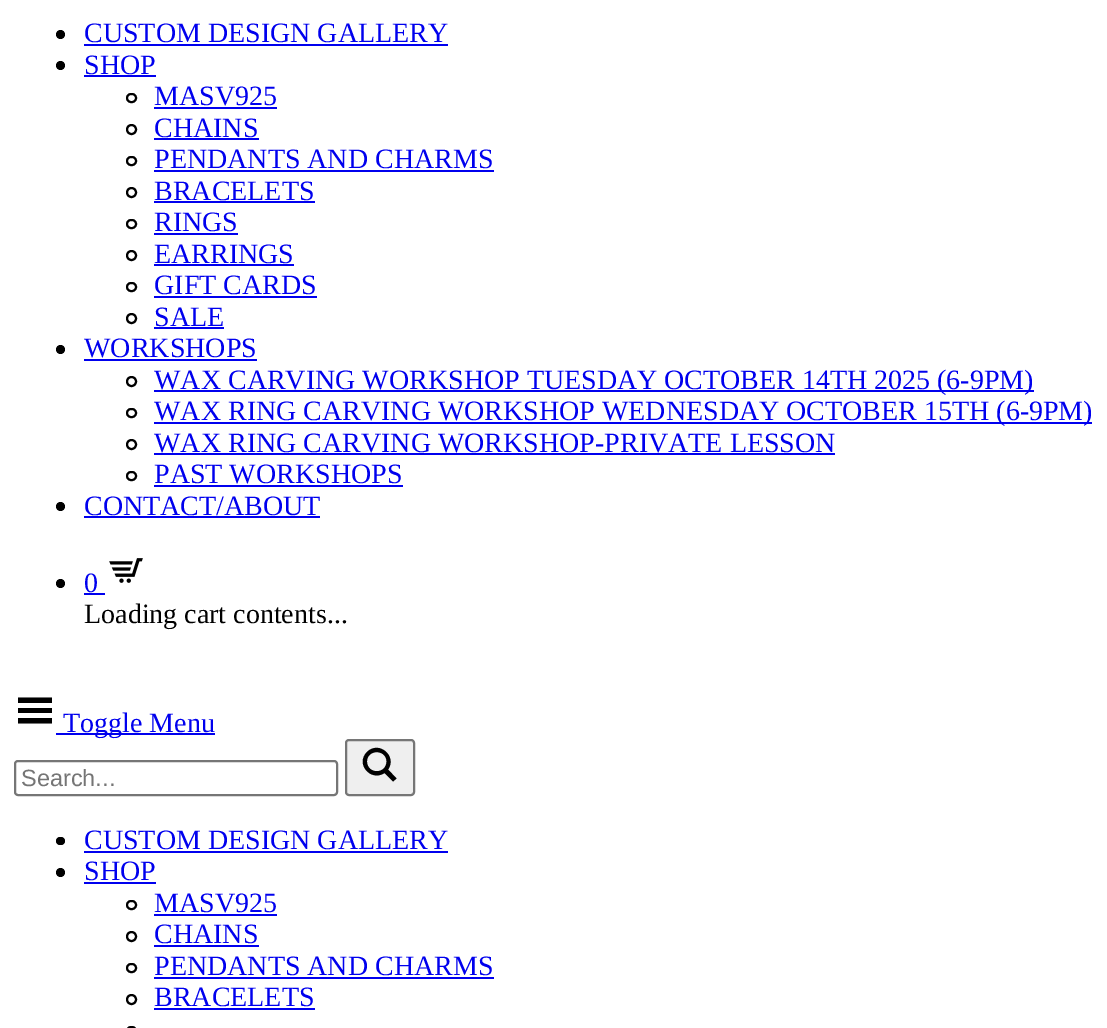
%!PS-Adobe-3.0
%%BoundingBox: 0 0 1107 1028
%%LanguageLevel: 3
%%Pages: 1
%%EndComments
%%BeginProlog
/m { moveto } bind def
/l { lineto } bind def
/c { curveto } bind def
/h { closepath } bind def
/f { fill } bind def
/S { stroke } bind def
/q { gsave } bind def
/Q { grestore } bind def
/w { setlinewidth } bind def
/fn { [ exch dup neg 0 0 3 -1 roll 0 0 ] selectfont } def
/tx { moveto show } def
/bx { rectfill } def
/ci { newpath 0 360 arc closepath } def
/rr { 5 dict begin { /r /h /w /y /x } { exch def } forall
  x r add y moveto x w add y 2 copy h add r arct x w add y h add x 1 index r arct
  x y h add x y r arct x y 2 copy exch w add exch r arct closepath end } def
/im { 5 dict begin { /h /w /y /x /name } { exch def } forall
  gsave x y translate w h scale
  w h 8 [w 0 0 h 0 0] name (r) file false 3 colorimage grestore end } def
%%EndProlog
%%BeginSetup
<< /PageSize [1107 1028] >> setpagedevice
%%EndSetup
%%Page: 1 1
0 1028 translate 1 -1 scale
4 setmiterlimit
1 setgray
0 0 1107 1028 bx
0 setgray
60.5 34.5 4.5 ci f
/LiberationSerif-Regular 28 fn
0 0 0.933 setrgbcolor
(CUSTOM DESIGN GALLERY) 84 42 tx
84 44 364 2 bx
0 setgray
60.5 65.5 4.5 ci f
0 0 0.933 setrgbcolor
(SHOP) 84 74 tx
84 75 72 2 bx
0 setgray
2 w
127 94 9 8 4 rr S
0 0 0.933 setrgbcolor
(MASV925) 154 105 tx
154 107 123 2 bx
0 setgray
131.5 129.5 4.5 ci S
0 0 0.933 setrgbcolor
(CHAINS) 154 137 tx
154 138 105 2 bx
0 setgray
127 157 9 8 4 rr S
0 0 0.933 setrgbcolor
(PENDANTS AND CHARMS) 154 168 tx
154 170 340 2 bx
0 setgray
131.5 192.5 4.5 ci S
0 0 0.933 setrgbcolor
(BRACELETS) 154 200 tx
154 201 161 2 bx
0 setgray
127 220 9 8 4 rr S
0 0 0.933 setrgbcolor
(RINGS) 154 231 tx
154 233 84 2 bx
0 setgray
131.5 255.5 4.5 ci S
0 0 0.933 setrgbcolor
(EARRINGS) 154 263 tx
154 264 140 2 bx
0 setgray
127 283 9 8 4 rr S
0 0 0.933 setrgbcolor
(GIFT CARDS) 154 294 tx
154 296 163 2 bx
0 setgray
131.5 318.5 4.5 ci S
0 0 0.933 setrgbcolor
(SALE) 154 326 tx
154 327 70 2 bx
0 setgray
60.5 349.5 4.5 ci f
0 0 0.933 setrgbcolor
(WORKSHOPS) 84 357 tx
84 359 173 2 bx
0 setgray
131.5 381.5 4.5 ci S
0 0 0.933 setrgbcolor
154 390 880 2 bx
(WAX CARVING WORKSHOP TUESDAY OCTOBER 14TH 2025 \(6-9PM\)) 154 389 tx
0 setgray
127 409 9 8 4 rr S
0 0 0.933 setrgbcolor
154 422 938 2 bx
(WAX RING CARVING WORKSHOP WEDNESDAY OCTOBER 15TH \(6-9PM\)) 154 420 tx
0 setgray
131.5 444.5 4.5 ci S
0 0 0.933 setrgbcolor
(WAX RING CARVING WORKSHOP-PRIVATE LESSON) 154 452 tx
154 453 681 2 bx
0 setgray
127 472 9 8 4 rr S
0 0 0.933 setrgbcolor
(PAST WORKSHOPS) 154 483 tx
154 485 249 2 bx
0 setgray
60.5 506.5 4.5 ci f
0 0 0.933 setrgbcolor
(CONTACT/ABOUT) 84 515 tx
84 516 236 2 bx
0 setgray
60.5 583.5 4.5 ci f
0 0 0.933 setrgbcolor
(0) 84 592 tx
84 593 21 2 bx
(image0.raw) 109 558 34 25 im
0 setgray
(Loading cart contents...) 84 623 tx
0 0 0.933 setrgbcolor
56 733 159 2 bx
(Toggle Menu) 63 732 tx
0 setgray
52 703 m 18 703 l 18 697.5 l 52 697.5 l h 52 708 m 18 708 l 18 713 l 52 713 l h 52 718 m 18 718 l 18 723.5 l 52 723.5 l h f
0.463 setgray
15 761 322 34 3 rr S
/LiberationSans-Regular 23.5 fn
0.459 setgray
(Search...) 21 786 tx
0.937 setgray
346 740 68 55 3 rr q f Q
0.463 setgray
S
0 setgray
396.5 778.5 m 388 769.5 l 397.5 756.5 379 740 367 752 c 355 764 371 782 384.5 773 c 393 781.5 l h 367 761.5 m 367 749 386.5 749 386.5 761.5 c 386.5 774.5 367 774.5 367 761.5 c h f
56 837 9 8 4 rr f
/LiberationSerif-Regular 28 fn
0 0 0.933 setrgbcolor
(CUSTOM DESIGN GALLERY) 84 849 tx
84 851 364 2 bx
0 setgray
60.5 872.5 4.5 ci f
0 0 0.933 setrgbcolor
(SHOP) 84 880 tx
84 882 72 2 bx
0 setgray
127 901 9 8 4 rr S
0 0 0.933 setrgbcolor
(MASV925) 154 912 tx
154 914 123 2 bx
0 setgray
131.5 936.5 4.5 ci S
0 0 0.933 setrgbcolor
(CHAINS) 154 943 tx
154 945 105 2 bx
0 setgray
127 964 9 8 4 rr S
0 0 0.933 setrgbcolor
(PENDANTS AND CHARMS) 154 975 tx
154 977 340 2 bx
0 setgray
131.5 999.5 4.5 ci S
0 0 0.933 setrgbcolor
(BRACELETS) 154 1006 tx
154 1008 161 2 bx
0 setgray
127 1027 9 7 4 rr S
showpage
%%EOF
